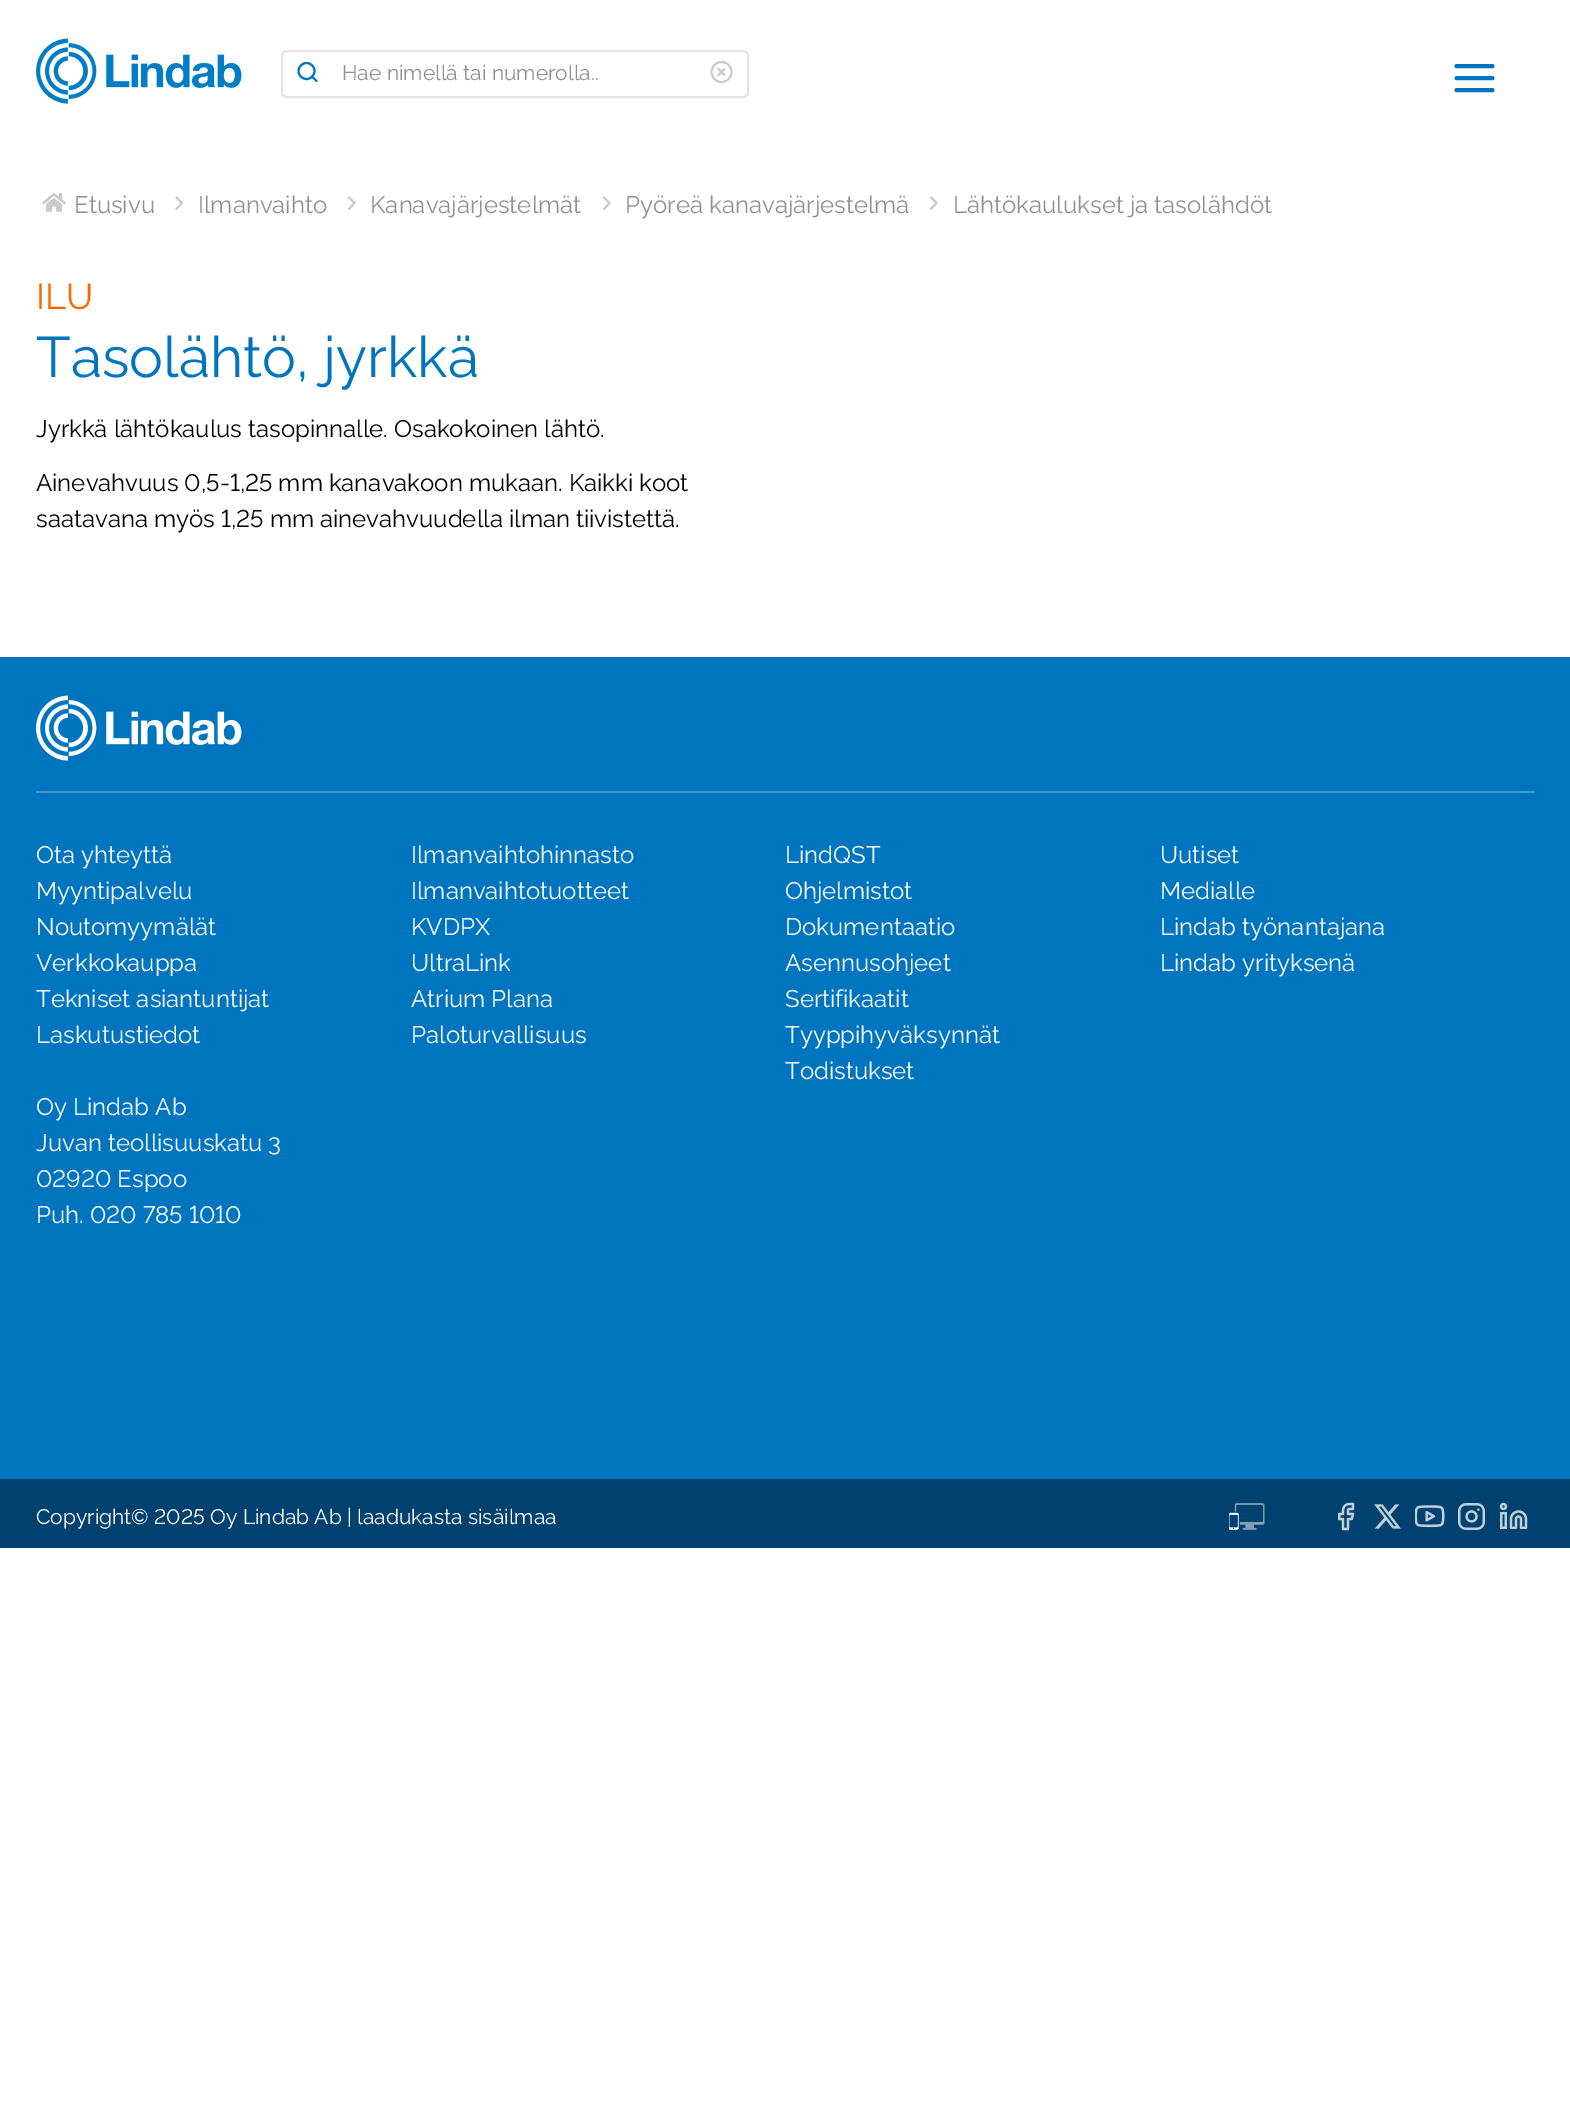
%!PS-Adobe-3.0
%%BoundingBox: 0 0 1570 2105
%%LanguageLevel: 3
%%Pages: 1
%%EndComments
%%BeginProlog
/m { moveto } bind def
/l { lineto } bind def
/S { stroke } bind def
/w { setlinewidth } bind def
/fn { [ exch dup neg 0 0 3 -1 roll 0 0 ] selectfont } def
/tx { moveto show } def
/bx { rectfill } def
/ci { newpath 0 360 arc closepath } def
/rr { 5 dict begin { /r /h /w /y /x } { exch def } forall
  x r add y moveto x w add y 2 copy h add r arct x w add y h add x 1 index r arct
  x y h add x y r arct x y 2 copy exch w add exch r arct closepath end } def
/im { 5 dict begin { /h /w /y /x /name } { exch def } forall
  gsave x y translate w h scale
  w h 8 [w 0 0 h 0 0] name (r) file false 3 colorimage grestore end } def
%%EndProlog
%%BeginSetup
<< /PageSize [1570 2105] >> setpagedevice
%%EndSetup
%%Page: 1 1
0 2105 translate 1 -1 scale
4 setmiterlimit
1 setgray
0 0 1570 2105 bx
(image0.raw) 36 38 206 66 im
0.894 setgray
2 w
282 51 466 46 5 rr S
0 0.459 0.749 setrgbcolor
306.5 71 8 ci S
1 setlinecap
1 setlinejoin
316.5 81 m 312 76.5 l S
/Raleway-Thin 21 fn
0.569 setgray
(Hae nimellä tai numerolla..) 342 80 tx
0.788 setgray
0 setlinecap
0 setlinejoin
721.5 72 10 ci S
1 setlinecap
1 setlinejoin
724.5 69 m 718.5 75 l 718.5 69 m 724.5 75 l S
0 0.459 0.749 setrgbcolor
4 w
1456.5 78 m 1492.5 78 l 1456.5 66 m 1492.5 66 l 1456.5 90 m 1492.5 90 l S
(image1.raw) 42 193 24 19 im
/Raleway-Thin 24 fn
0.569 setgray
(Etusivu) 74 213 tx
0.788 setgray
1.9 w
176.5 209 m 182 203 l 176.5 197.5 l S
0.569 setgray
(Ilmanvaihto) 198 213 tx
0.788 setgray
349 209 m 354.5 203 l 349 197.5 l S
0.569 setgray
(Kanavajärjestelmät) 370 213 tx
0.788 setgray
604 209 m 609.5 203 l 604 197.5 l S
0.569 setgray
(Pyöreä kanavajärjestelmä) 625 213 tx
0.788 setgray
931 209 m 936.5 203 l 931 197.5 l S
0.569 setgray
(Lähtökaulukset ja tasolähdöt) 953 213 tx
/Raleway-Thin 36 fn
1 0.4 0 setrgbcolor
(ILU) 36 309 tx
/Raleway-Thin 57 fn
0 0.459 0.749 setrgbcolor
(Tasolähtö, jyrkkä) 36 377 tx
/Raleway-Thin 24 fn
0 setgray
(Jyrkkä lähtökaulus tasopinnalle. Osakokoinen lähtö.) 36 437 tx
/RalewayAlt-Thin 24 fn
(Ainevahvuus 0,5-1,25 mm kanavakoon mukaan. Kaikki koot) 36 491 tx
(saatavana myös 1,25 mm ainevahvuudella ilman tiivistettä.) 36 527 tx
0 0.459 0.749 setrgbcolor
0 657 1570 822 bx
(image2.raw) 36 695 206 66 im
0.251 0.596 0.812 setrgbcolor
36 791 1499 2 bx
/Raleway-Thin 24 fn
1 setgray
(Ota yhteyttä) 36 863 tx
(Myyntipalvelu) 36 899 tx
(Noutomyymälät) 36 935 tx
(Verkkokauppa) 36 971 tx
(Tekniset asiantuntijat) 36 1007 tx
(Laskutustiedot) 36 1043 tx
(Oy Lindab Ab) 36 1115 tx
(Juvan teollisuuskatu 3) 36 1151 tx
/RalewayAlt-Thin 24 fn
(02920 Espoo) 36 1187 tx
(Puh. 020 785 1010) 36 1223 tx
/Raleway-Thin 24 fn
(Ilmanvaihtohinnasto) 411 863 tx
(Ilmanvaihtotuotteet) 411 899 tx
(KVDPX) 411 935 tx
(UltraLink) 411 971 tx
(Atrium Plana) 411 1007 tx
(Paloturvallisuus) 411 1043 tx
(LindQST) 785 863 tx
(Ohjelmistot) 785 899 tx
(Dokumentaatio) 785 935 tx
(Asennusohjeet) 785 971 tx
(Sertifikaatit) 785 1007 tx
(Tyyppihyväksynnät) 785 1043 tx
(Todistukset) 785 1079 tx
(Uutiset) 1160 863 tx
(Medialle) 1160 899 tx
(Lindab työnantajana) 1160 935 tx
(Lindab yrityksenä) 1160 971 tx
0.004 0.255 0.435 setrgbcolor
0 1479 1570 69 bx
/RalewayAlt-Thin 21 fn
1 setgray
(Copyright© 2025 Oy Lindab Ab | laadukasta sisäilmaa) 36 1524 tx
(image3.raw) 1229 1503 36 27 im
(image4.raw) 1338 1502 17 29 im
(image5.raw) 1374 1504 27 25 im
(image6.raw) 1415 1505 30 23 im
(image7.raw) 1458 1503 27 27 im
(image8.raw) 1499 1502 29 27 im
showpage
%%EOF
